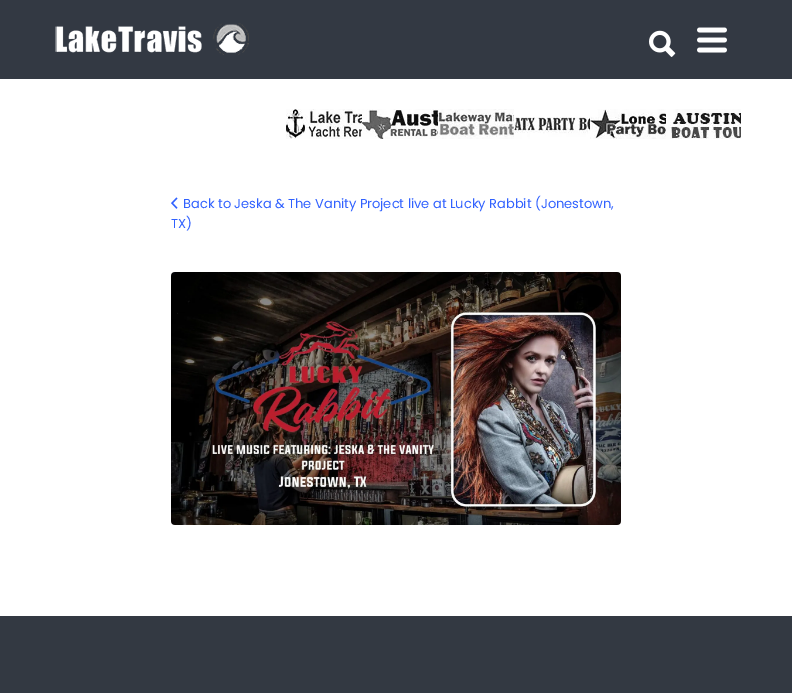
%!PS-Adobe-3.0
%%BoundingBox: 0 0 792 693
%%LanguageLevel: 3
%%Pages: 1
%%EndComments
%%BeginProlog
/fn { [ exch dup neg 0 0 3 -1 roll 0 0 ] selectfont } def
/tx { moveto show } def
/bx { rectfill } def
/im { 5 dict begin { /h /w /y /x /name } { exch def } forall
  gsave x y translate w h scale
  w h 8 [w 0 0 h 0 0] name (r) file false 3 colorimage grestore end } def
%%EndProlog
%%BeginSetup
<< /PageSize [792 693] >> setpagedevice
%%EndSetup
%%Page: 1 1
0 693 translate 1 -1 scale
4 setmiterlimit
1 setgray
0 0 792 693 bx
0.2 0.224 0.263 setrgbcolor
0 0 792 79 bx
(image0.raw) 55 23 194 32 im
(image1.raw) 649 30 27 27 im
(image2.raw) 697 27 30 26 im
(image3.raw) 286 109 76 30 im
(image4.raw) 362 109 76 30 im
(image5.raw) 438 109 76 30 im
(image6.raw) 514 109 76 30 im
(image7.raw) 590 109 76 30 im
(image8.raw) 666 109 75 30 im
(image9.raw) 171 197 7 12 im
/Poppins-Regular 13 fn
0.188 0.38 1 setrgbcolor
(Back to Jeska & The Vanity Project live at Lucky Rabbit \(Jonestown,) 183 208 tx
(TX\)) 171 228 tx
(image10.raw) 171 272 450 253 im
0.2 0.224 0.259 setrgbcolor
0 616 792 77 bx
showpage
%%EOF
